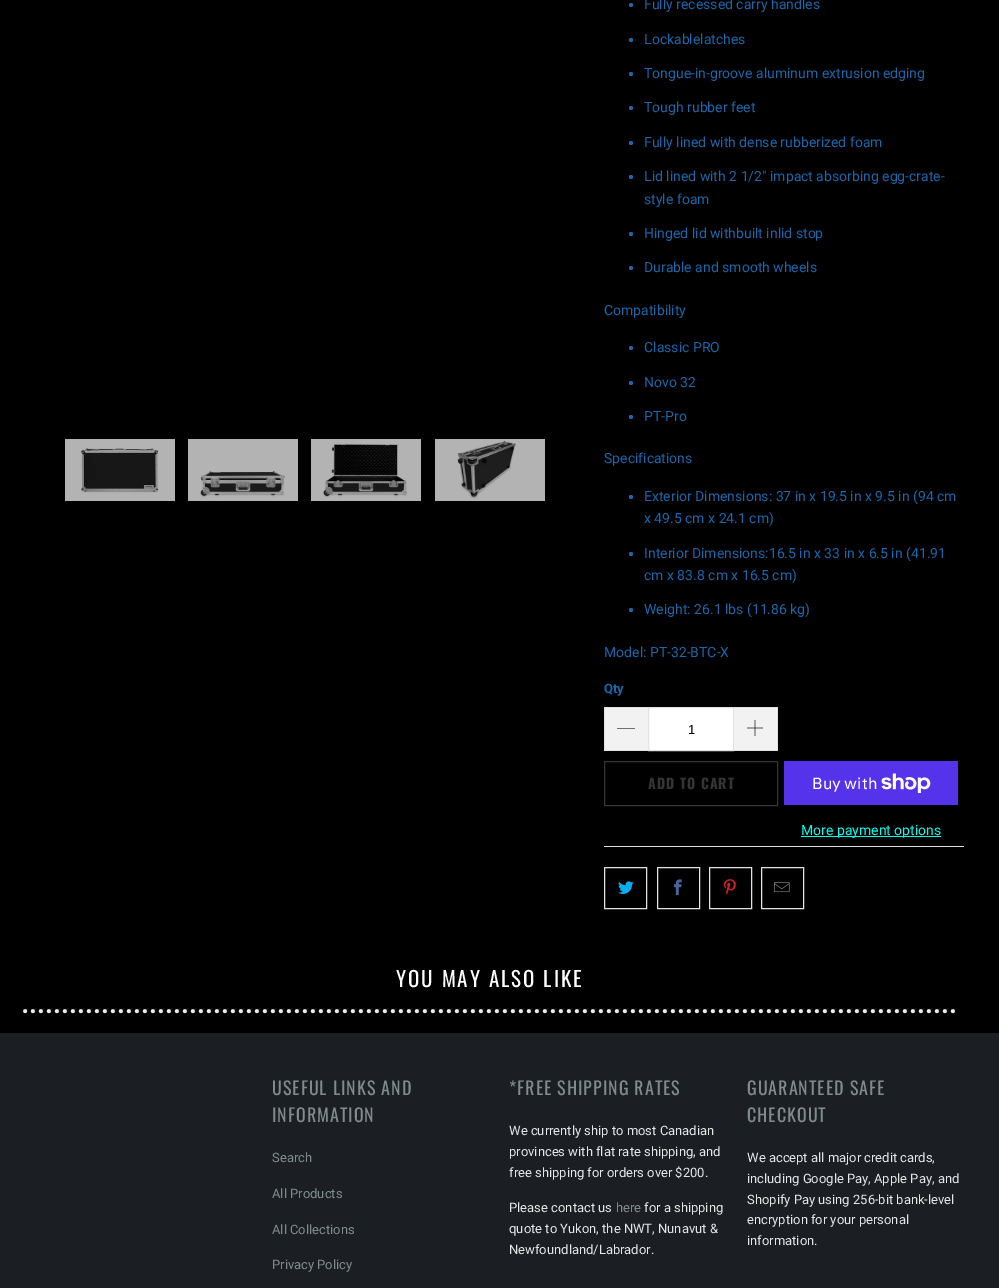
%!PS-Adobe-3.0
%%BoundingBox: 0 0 999 1288
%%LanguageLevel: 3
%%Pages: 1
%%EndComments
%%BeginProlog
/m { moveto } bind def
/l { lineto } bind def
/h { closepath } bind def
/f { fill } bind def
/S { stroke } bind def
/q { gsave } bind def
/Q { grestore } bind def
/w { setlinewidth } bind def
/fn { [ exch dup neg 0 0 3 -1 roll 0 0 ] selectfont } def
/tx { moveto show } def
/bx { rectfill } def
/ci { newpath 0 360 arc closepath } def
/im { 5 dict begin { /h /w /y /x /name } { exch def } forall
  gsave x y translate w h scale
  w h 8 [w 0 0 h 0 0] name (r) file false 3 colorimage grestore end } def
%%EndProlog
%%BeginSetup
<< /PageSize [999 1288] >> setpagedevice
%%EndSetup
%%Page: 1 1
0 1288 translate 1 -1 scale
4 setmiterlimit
0 setgray
0 0 999 1288 bx
(image0.raw) 65 439 110 62 im
(image1.raw) 188 439 110 62 im
(image2.raw) 311 439 110 62 im
(image3.raw) 435 439 110 62 im
0.11 0.4 0.663 setrgbcolor
631 5 2 ci f
/Roboto-Regular 14 fn
(Fully recessed carry handles) 644 9 tx
631 40 2 ci f
(Lockablelatches) 644 44 tx
631 74 2 ci f
(Tongue-in-groove aluminum extrusion edging) 644 78 tx
631 108 2 ci f
(Tough rubber feet) 644 112 tx
631 143 2 ci f
(Fully lined with dense rubberized foam) 644 147 tx
631 177 2 ci f
(Lid lined with 2 1/2" impact absorbing egg-crate-) 644 181 tx
(style foam) 644 204 tx
631 234 2 ci f
(Hinged lid withbuilt inlid stop) 644 238 tx
631 268 2 ci f
(Durable and smooth wheels) 644 272 tx
(Compatibility) 604 315 tx
631 348 2 ci f
(Classic PRO) 644 352 tx
631 383 2 ci f
(Novo 32) 644 387 tx
631 417 2 ci f
(PT-Pro) 644 421 tx
(Specifications) 604 463 tx
631 497 2 ci f
(Exterior Dimensions: 37 in x 19.5 in x 9.5 in \(94 cm) 644 501 tx
(x 49.5 cm x 24.1 cm\)) 644 523 tx
631 554 2 ci f
(Interior Dimensions:16.5 in x 33 in x 6.5 in \(41.91) 644 558 tx
(cm x 83.8 cm x 16.5 cm\)) 644 580 tx
631 610 2 ci f
(Weight: 26.1 lbs \(11.86 kg\)) 644 614 tx
(Model: PT-32-BTC-X) 604 657 tx
/Roboto-Bold 13 fn
(Qty) 604 693 tx
0.949 setgray
605 708 43 42 bx
0.886 setgray
604 707 44 1 bx
604 750 44 1 bx
604 707 1 44 bx
0 setgray
617 728 m 635 728 l 635 728.5 l 617 728.5 l h f
1 setgray
648.5 707.5 m 733.5 707.5 l 733.5 750.5 l 648.5 750.5 l h q f Q
0.886 setgray
S
/LiberationSans-Regular 13 fn
0 setgray
(1) 688 734 tx
0.949 setgray
734 708 43 42 bx
0.886 setgray
734 707 44 1 bx
777 707 1 44 bx
734 750 44 1 bx
(image4.raw) 747 720 16 16 im
0.208 setgray
604.5 761.5 173 44 rectstroke
/Oswald-Bold 14 fn
648 789 m 1 0 (ADD TO CART) ashow
0.329 0.2 0.922 setrgbcolor
784 761 174 44 bx
/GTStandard-Regular 16 fn
1 setgray
(Buy with) 812 789 tx
(image5.raw) 881 773 50 20 im
0 1 0.929 setrgbcolor
801 836 140 1 bx
/Roboto-Regular 14 fn
(More payment options) 801 835 tx
0.871 setgray
604 846 360 1 bx
0.886 setgray
604.5 867.5 42 41 rectstroke
(image6.raw) 618 881 16 13 im
657.5 867.5 42 41 rectstroke
(image7.raw) 673 879 9 16 im
709.5 867.5 42 41 rectstroke
(image8.raw) 723 879 13 16 im
761.5 867.5 42 41 rectstroke
(image9.raw) 774 882 16 11 im
/Oswald-Regular 21 fn
1 setgray
396 987 m 2 0 (YOU MAY ALSO LIKE) ashow
0.918 setgray
4 w
1 setlinecap
[0 8] 0 setdash
25 1011 m 954 1011 l S
0.106 0.122 0.137 setrgbcolor
0 1033 999 255 bx
/Oswald-Regular 18 fn
0.498 0.549 0.553 setrgbcolor
272 1095 m 1 0 (USEFUL LINKS AND) ashow
272 1122 m 1 0 (INFORMATION) ashow
/Roboto-Regular 13 fn
(Search) 272 1162 tx
(All Products) 272 1198 tx
(All Collections) 272 1234 tx
(Privacy Policy) 272 1269 tx
/Oswald-Regular 18 fn
509 1095 m 1 0 (*FREE SHIPPING RATES) ashow
/Roboto-Regular 13 fn
0.902 setgray
(We currently ship to most Canadian) 509 1135 tx
(provinces with flat rate shipping, and) 509 1156 tx
(free shipping for orders over $200.) 509 1177 tx
(Please contact us) 509 1212 tx
0.498 0.549 0.553 setrgbcolor
(here) 616 1212 tx
0.902 setgray
(for a shipping) 644 1212 tx
(quote to Yukon, the NWT, Nunavut &) 509 1233 tx
(Newfoundland/Labrador.) 509 1254 tx
/Oswald-Regular 18 fn
0.498 0.549 0.553 setrgbcolor
747 1095 m 1 0 (GUARANTEED SAFE) ashow
747 1122 m 1 0 (CHECKOUT) ashow
/Roboto-Regular 13 fn
0.902 setgray
(We accept all major credit cards,) 747 1162 tx
(including Google Pay, Apple Pay, and) 747 1183 tx
(Shopify Pay using 256-bit bank-level) 747 1204 tx
(encryption for your personal) 747 1224 tx
(information.) 747 1245 tx
showpage
%%EOF
